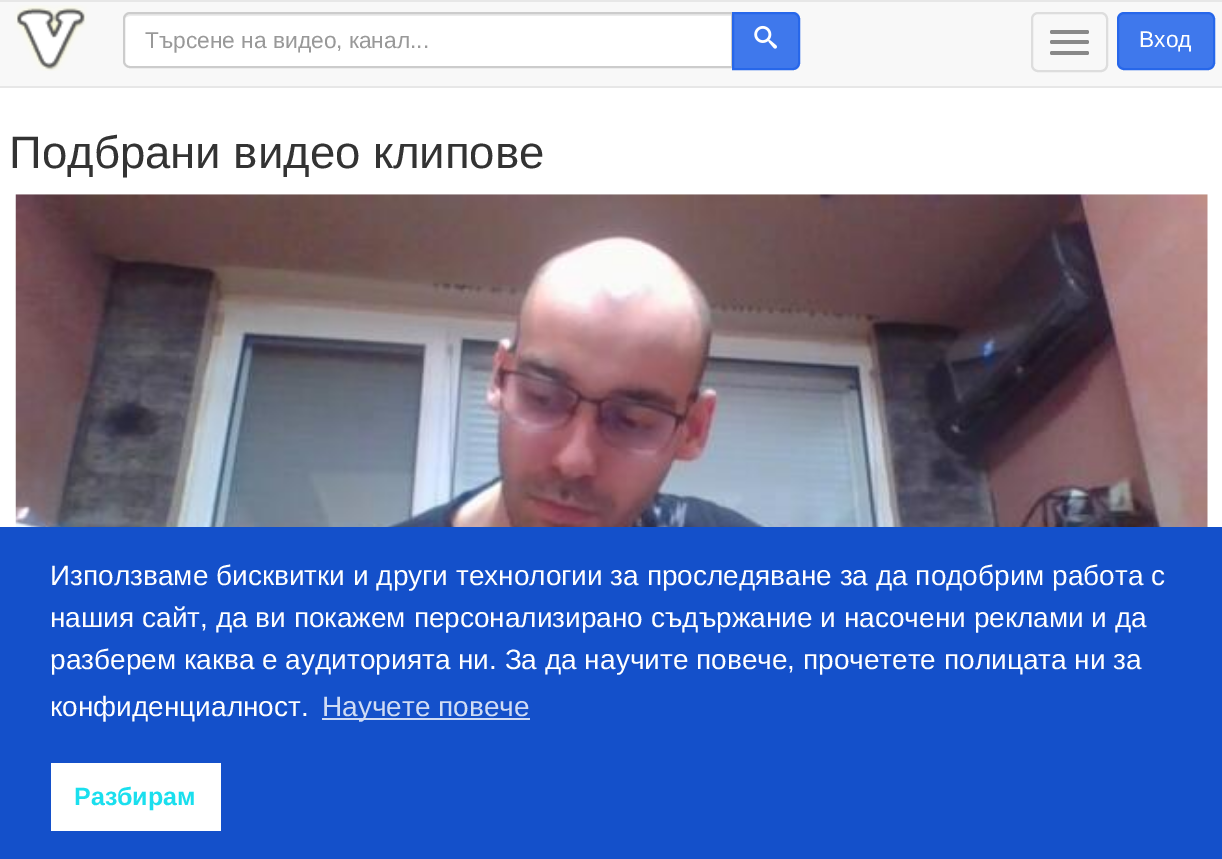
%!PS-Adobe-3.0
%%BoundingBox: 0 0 1222 859
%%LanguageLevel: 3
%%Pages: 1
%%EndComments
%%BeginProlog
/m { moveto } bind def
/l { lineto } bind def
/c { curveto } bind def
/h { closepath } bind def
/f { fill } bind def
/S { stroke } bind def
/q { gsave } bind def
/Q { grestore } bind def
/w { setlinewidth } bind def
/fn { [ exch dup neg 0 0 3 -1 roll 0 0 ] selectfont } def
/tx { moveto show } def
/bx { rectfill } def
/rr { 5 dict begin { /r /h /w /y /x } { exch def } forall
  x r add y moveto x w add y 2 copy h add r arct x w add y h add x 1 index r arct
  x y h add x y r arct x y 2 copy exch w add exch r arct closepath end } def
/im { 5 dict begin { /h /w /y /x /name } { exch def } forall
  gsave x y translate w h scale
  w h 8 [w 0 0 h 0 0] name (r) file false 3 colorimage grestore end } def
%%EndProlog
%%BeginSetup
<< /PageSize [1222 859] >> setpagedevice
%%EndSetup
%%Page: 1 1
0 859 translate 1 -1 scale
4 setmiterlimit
1 setgray
0 0 1222 859 bx
0.973 setgray
0 2 1222 84 bx
0.906 setgray
0 0 1222 2 bx
0 86 1222 2 bx
(image0.raw) 14 5 73 66 im
1 setgray
130 12 m 733 12 l 733 68 l 130 68 l 126 68 123 65 123 61 c 123 19 l 123 15 126 12 130 12 c h f
0.925 setgray
130 16 m 732 16 l 732 14 l 129 14 l 125 14 124 18 124 21 c 124 18 127 16 130 16 c h f
0.8 setgray
2 w
130 13 m 732 13 l 732 67 l 130 67 l 126.5 67 124 64.5 124 61 c 124 19 l 124 15.5 126.5 13 130 13 c h S
/LiberationSans-Regular 22.75 fn
0.6 setgray
(Търсене на видео, канал...) 145 48 tx
0.247 0.471 0.925 setrgbcolor
733 13 m 793 13 l 796.5 13 799 15.5 799 19 c 799 63 l 799 66.5 796.5 69 793 69 c 733 69 l h q f Q
0.153 0.404 0.918 setrgbcolor
S
(image1.raw) 754 25 23 24 im
0.867 setgray
1032 13 75 58 6 rr S
0.533 setgray
1050 30 39 4 2 rr f
1050 40 39 4 2 rr f
1050 51 39 4 2 rr f
0.247 0.471 0.925 setrgbcolor
1118 13 96 56 6 rr q f Q
0.153 0.404 0.918 setrgbcolor
S
1 setgray
(Вход) 1139 47 tx
/LiberationSans-Regular 45.5 fn
0.2 setgray
(Подбрани видео клипове) 9 168 tx
(image2.raw) 15 194 1193 333 im
0.078 0.314 0.792 setrgbcolor
0 527 1222 332 bx
/LiberationSans-Regular 28 fn
1 setgray
(Използваме бисквитки и други технологии за проследяване за да подобрим работа с) 50 585 tx
(нашия сайт, да ви покажем персонализирано съдържание и насочени реклами и да) 50 627 tx
(разберем каква е аудиторията ни. За да научите повече, прочетете полицата ни за) 50 669 tx
(конфиденциалност.) 50 716 tx
0.816 0.863 0.957 setrgbcolor
322 718 208 2 bx
(Научете повече) 322 716 tx
1 setgray
51 763 170 68 bx
/LiberationSans-Bold 25 fn
0.102 0.875 0.933 setrgbcolor
(Разбирам) 74 805 tx
showpage
%%EOF
